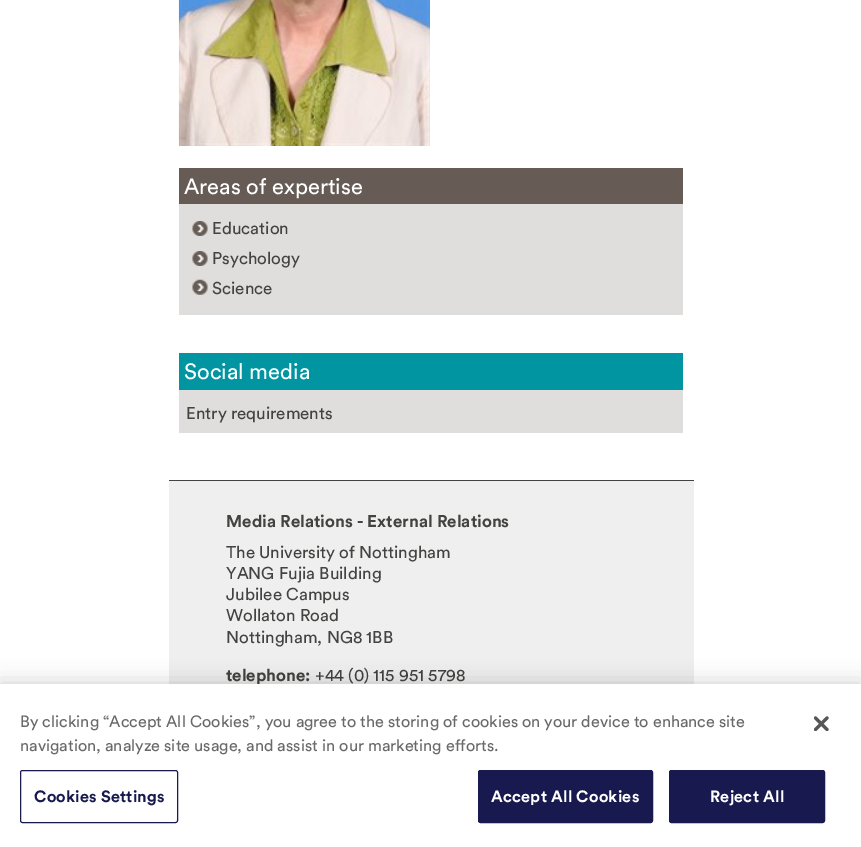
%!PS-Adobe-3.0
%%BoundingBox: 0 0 861 847
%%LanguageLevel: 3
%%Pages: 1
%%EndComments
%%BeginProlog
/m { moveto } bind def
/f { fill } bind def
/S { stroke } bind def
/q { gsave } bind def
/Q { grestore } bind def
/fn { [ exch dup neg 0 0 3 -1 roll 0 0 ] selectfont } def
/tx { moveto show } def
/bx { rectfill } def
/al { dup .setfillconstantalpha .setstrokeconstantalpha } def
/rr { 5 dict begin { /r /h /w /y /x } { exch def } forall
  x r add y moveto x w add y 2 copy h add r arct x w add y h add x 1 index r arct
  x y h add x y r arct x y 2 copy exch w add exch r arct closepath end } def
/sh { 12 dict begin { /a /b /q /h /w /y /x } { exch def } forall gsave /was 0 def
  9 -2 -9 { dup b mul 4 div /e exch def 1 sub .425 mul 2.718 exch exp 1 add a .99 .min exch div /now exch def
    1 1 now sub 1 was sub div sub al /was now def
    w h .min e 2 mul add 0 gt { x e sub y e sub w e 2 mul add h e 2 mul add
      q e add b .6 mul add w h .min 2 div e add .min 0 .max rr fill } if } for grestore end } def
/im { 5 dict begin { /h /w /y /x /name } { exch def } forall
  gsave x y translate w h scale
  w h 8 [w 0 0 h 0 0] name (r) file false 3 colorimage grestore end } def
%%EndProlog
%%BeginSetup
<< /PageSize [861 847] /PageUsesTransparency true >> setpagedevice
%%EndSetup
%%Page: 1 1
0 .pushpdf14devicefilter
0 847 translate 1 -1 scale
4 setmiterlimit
1 setgray
0 0 861 847 bx
(image0.raw) 178 0 252 146 im
0.878 0.871 0.867 setrgbcolor
179 204 504 111 bx
0.4 0.361 0.333 setrgbcolor
179 168 504 36 bx
/Circular-Regular 22 fn
1 setgray
(Areas of expertise) 184 194 tx
(image1.raw) 192 221 16 15 im
/Circular-Regular 17 fn
0.263 0.263 0.255 setrgbcolor
(Education) 212 234 tx
(image1.raw) 192 251 16 15 im
(Psychology) 212 264 tx
(image2.raw) 192 279 16 16 im
(Science) 212 294 tx
0.878 0.871 0.867 setrgbcolor
179 390 504 43 bx
0 0.584 0.631 setrgbcolor
179 353 504 37 bx
/Circular-Regular 22 fn
1 setgray
(Social media) 184 379 tx
/Circular-Regular 17 fn
0.263 0.263 0.255 setrgbcolor
(Entry requirements) 186 419 tx
0.937 setgray
169 481 525 203 bx
0.263 0.263 0.255 setrgbcolor
169 480 525 1 bx
/Circular-Bold 17 fn
(Media Relations - External Relations) 226 527 tx
/Circular-Regular 17 fn
(The University of Nottingham) 226 558 tx
(YANG Fujia Building) 226 579 tx
(Jubilee Campus) 226 600 tx
(Wollaton Road) 226 621 tx
(Nottingham, NG8 1BB) 226 643 tx
/Circular-Bold 17 fn
(telephone:) 226 681 tx
/Circular-Regular 17 fn
(+44 \(0\) 115 951 5798) 315 681 tx
0 setgray
0 684 861 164 0 11 0.2 sh
1 setgray
0 684 861 163 bx
/Circular-Regular 16.25 fn
0.412 setgray
(By clicking “Accept All Cookies”, you agree to the storing of cookies on your device to enhance site) 20 727 tx
(navigation, analyze site usage, and assist in our marketing efforts.) 20 751 tx
0.094 0.098 0.31 setrgbcolor
20.5 770.5 157 52 2 rr S
/Circular-Bold 16.25 fn
34 802 m 0.2 0 (Cookies Settings) ashow
478.5 770.5 174 52 2 rr q f Q
S
1 setgray
491 802 m 0.2 0 (Accept All Cookies) ashow
0.094 0.098 0.31 setrgbcolor
669.5 770.5 155 52 2 rr q f Q
S
1 setgray
710 802 m 0.2 0 (Reject All) ashow
(image3.raw) 814 716 15 15 im
.poppdf14devicefilter showpage
%%EOF
